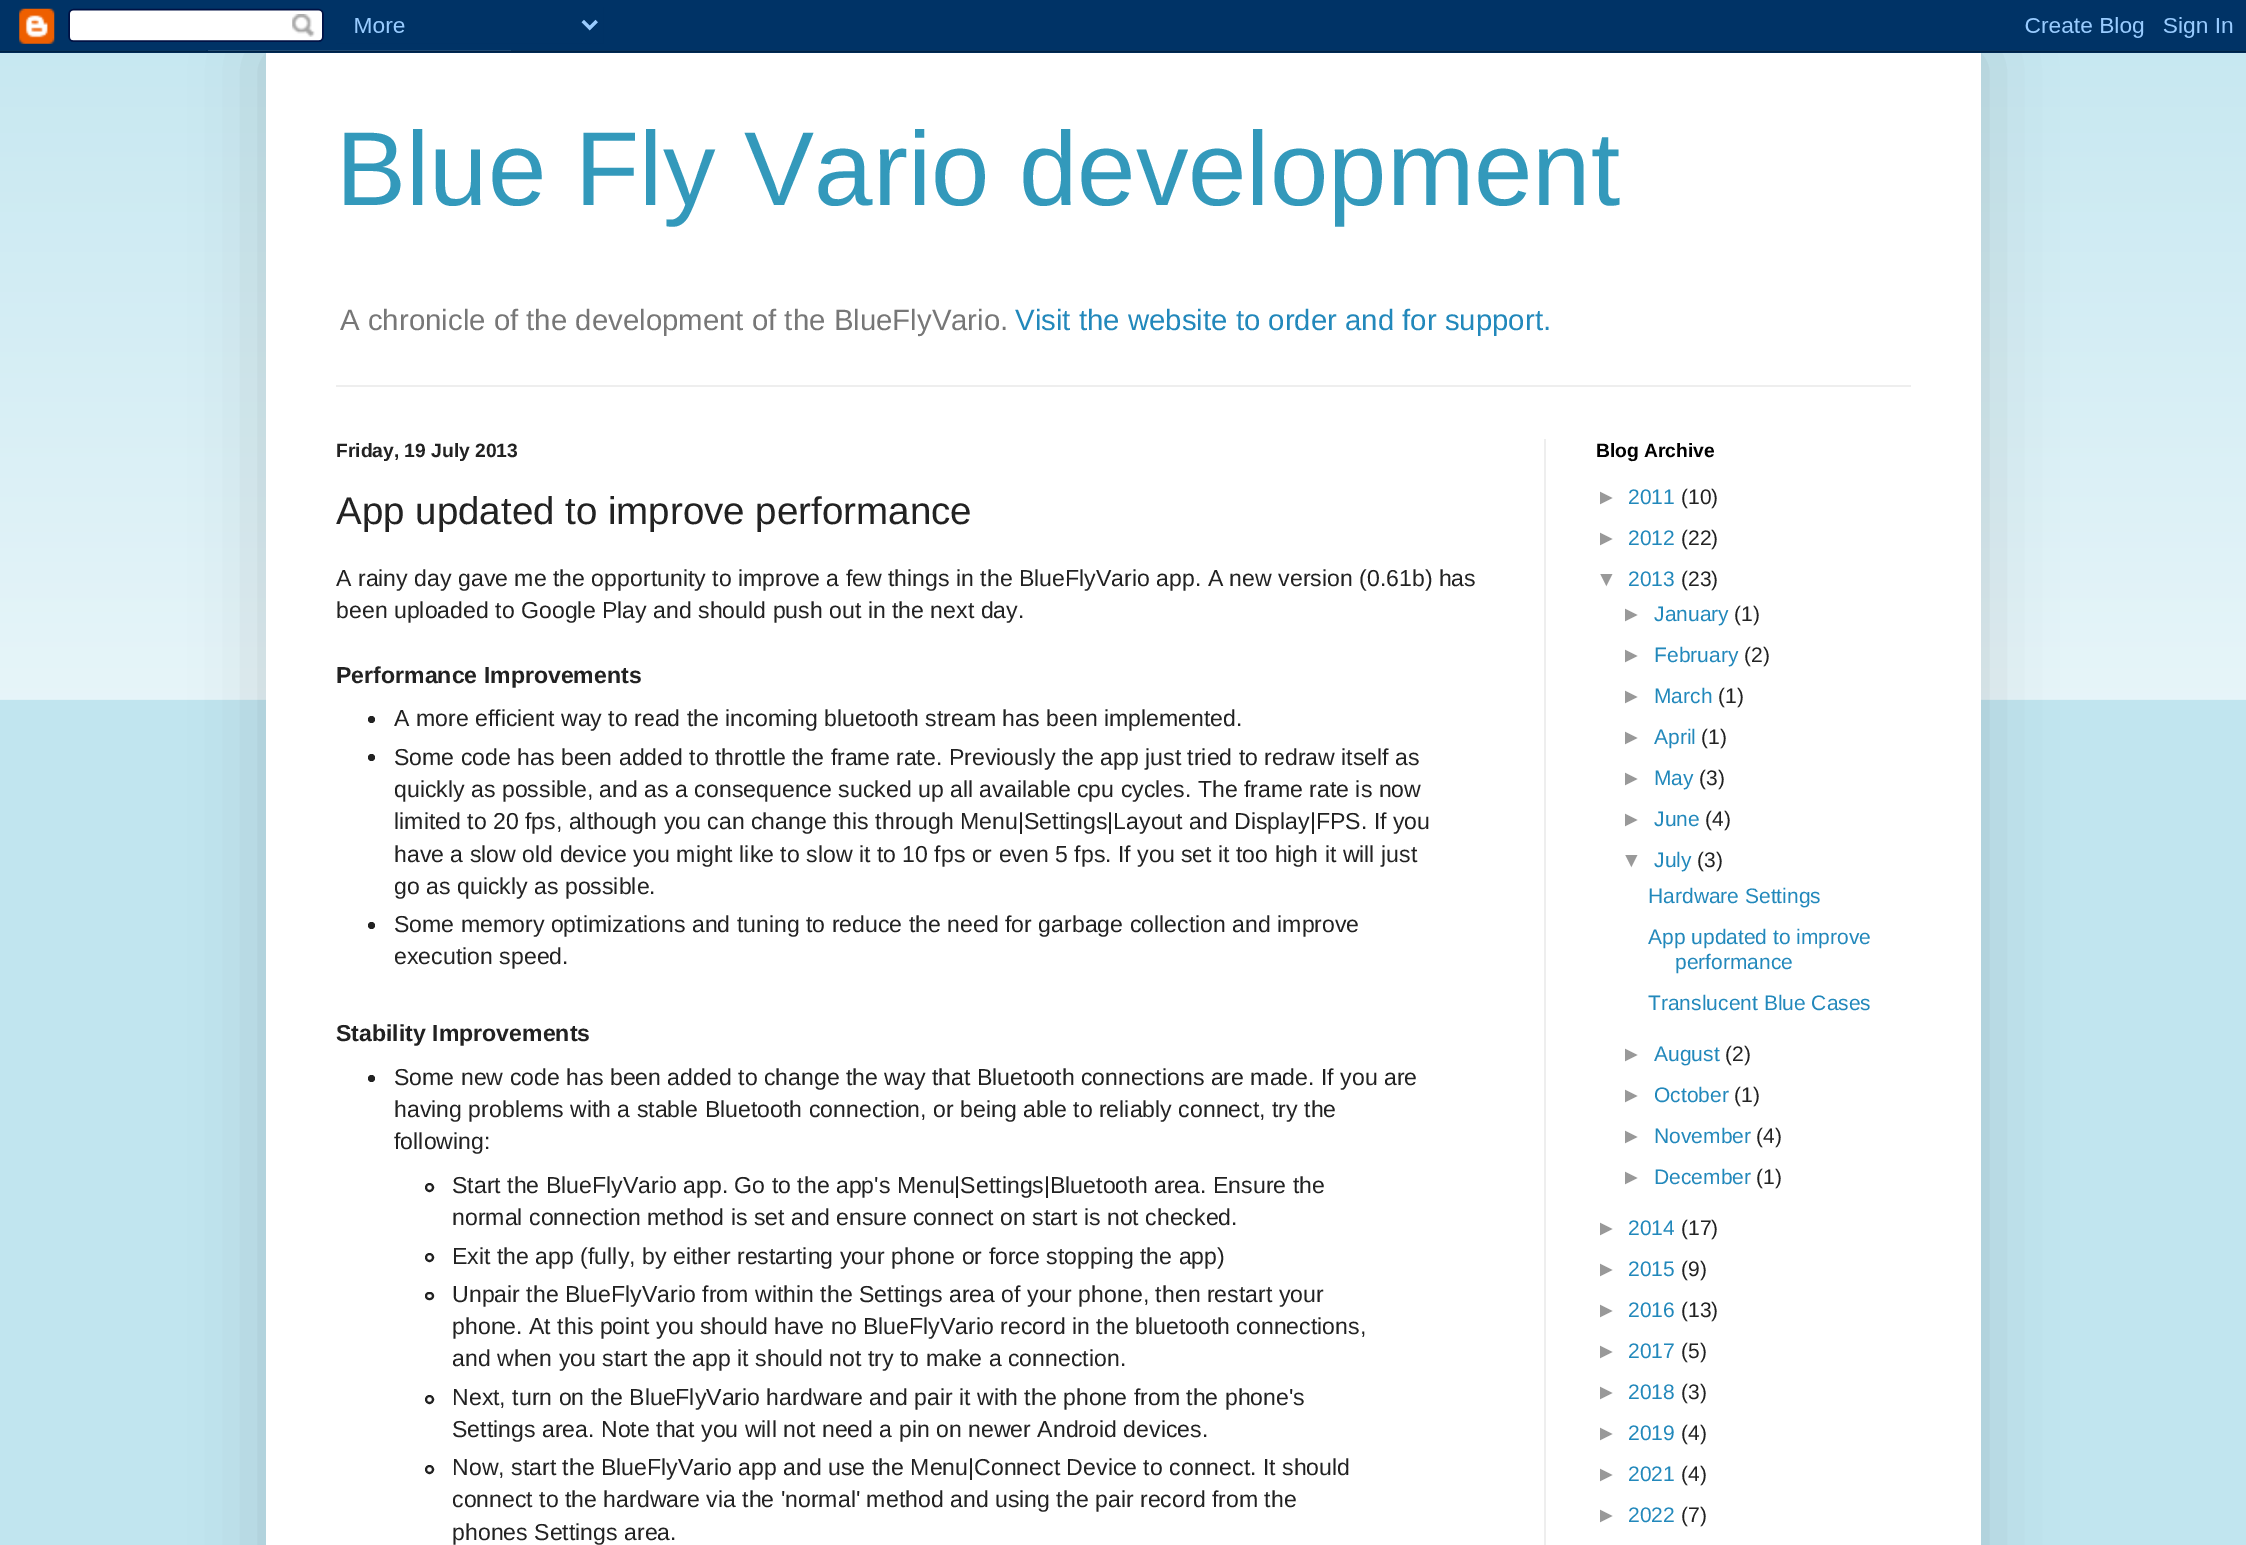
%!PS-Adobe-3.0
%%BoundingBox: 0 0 2246 1545
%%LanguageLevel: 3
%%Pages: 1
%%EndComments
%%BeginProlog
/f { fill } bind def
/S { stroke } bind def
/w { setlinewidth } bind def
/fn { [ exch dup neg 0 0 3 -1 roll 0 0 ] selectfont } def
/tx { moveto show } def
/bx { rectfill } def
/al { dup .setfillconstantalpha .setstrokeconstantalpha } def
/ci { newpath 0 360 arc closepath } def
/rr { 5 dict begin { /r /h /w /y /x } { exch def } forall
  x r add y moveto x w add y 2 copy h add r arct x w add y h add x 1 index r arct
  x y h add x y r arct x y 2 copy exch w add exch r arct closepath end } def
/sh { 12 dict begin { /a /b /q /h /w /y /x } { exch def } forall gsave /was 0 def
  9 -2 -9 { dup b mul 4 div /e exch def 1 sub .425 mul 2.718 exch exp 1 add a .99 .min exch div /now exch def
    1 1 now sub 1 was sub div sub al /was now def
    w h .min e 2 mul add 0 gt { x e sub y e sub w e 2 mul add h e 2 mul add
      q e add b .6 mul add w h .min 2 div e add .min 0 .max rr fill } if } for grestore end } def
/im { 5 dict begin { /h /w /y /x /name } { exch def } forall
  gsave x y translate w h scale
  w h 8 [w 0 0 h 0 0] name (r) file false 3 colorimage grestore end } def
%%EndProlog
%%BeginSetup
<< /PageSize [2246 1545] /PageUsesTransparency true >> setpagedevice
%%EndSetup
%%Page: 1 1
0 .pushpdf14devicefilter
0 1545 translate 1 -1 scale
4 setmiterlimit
0.757 0.898 0.937 setrgbcolor
0 0 2246 1545 bx
(image1.raw) 0 50 2246 650 im
0 setgray
266 53 1715 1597 0 35 0.15 sh
(image0.raw) 0 0 2246 53 im
1 setgray
266 53 1715 1492 bx
/LiberationSans-Regular 105 fn
0.2 0.6 0.733 setrgbcolor
(Blue Fly Vario development) 336 205 tx
/LiberationSans-Regular 29.4 fn
0.467 setgray
(A chronicle of the development of the BlueFlyVario.) 340 330 tx
0.133 0.533 0.733 setrgbcolor
(Visit the website to order and for support.) 1015 330 tx
0.933 setgray
336 385 1575 2 bx
1544 439 2 1106 bx
/LiberationSans-Bold 19.25 fn
0.133 setgray
(Friday, 19 July 2013) 336 457 tx
/LiberationSans-Regular 38.5 fn
(App updated to improve performance) 336 524 tx
/LiberationSans-Regular 23.1 fn
(A rainy day gave me the opportunity to improve a few things in the BlueFlyVario app. A new version \(0.61b\) has) 336 586 tx
(been uploaded to Google Play and should push out in the next day.) 336 618 tx
/LiberationSans-Bold 23.1 fn
(Performance Improvements) 336 683 tx
371.5 719.5 3.5 ci f
/LiberationSans-Regular 23.1 fn
(A more efficient way to read the incoming bluetooth stream has been implemented.) 394 726 tx
371.5 757.5 3.5 ci f
(Some code has been added to throttle the frame rate. Previously the app just tried to redraw itself as) 394 765 tx
(quickly as possible, and as a consequence sucked up all available cpu cycles. The frame rate is now) 394 797 tx
(limited to 20 fps, although you can change this through Menu|Settings|Layout and Display|FPS. If you) 394 829 tx
(have a slow old device you might like to slow it to 10 fps or even 5 fps. If you set it too high it will just) 394 862 tx
(go as quickly as possible.) 394 894 tx
371.5 925.5 3.5 ci f
(Some memory optimizations and tuning to reduce the need for garbage collection and improve) 394 932 tx
(execution speed.) 394 964 tx
/LiberationSans-Bold 23.1 fn
(Stability Improvements) 336 1041 tx
371.5 1078.5 3.5 ci f
/LiberationSans-Regular 23.1 fn
(Some new code has been added to change the way that Bluetooth connections are made. If you are) 394 1085 tx
(having problems with a stable Bluetooth connection, or being able to reliably connect, try the) 394 1117 tx
(following:) 394 1149 tx
2 w
429.5 1187.5 3.5 ci S
(Start the BlueFlyVario app. Go to the app's Menu|Settings|Bluetooth area. Ensure the) 452 1193 tx
(normal connection method is set and ensure connect on start is not checked.) 452 1225 tx
429.5 1257.5 3.5 ci S
(Exit the app \(fully, by either restarting your phone or force stopping the app\)) 452 1264 tx
426 1293 7 6 3 rr S
(Unpair the BlueFlyVario from within the Settings area of your phone, then restart your) 452 1302 tx
(phone. At this point you should have no BlueFlyVario record in the bluetooth connections,) 452 1334 tx
(and when you start the app it should not try to make a connection.) 452 1366 tx
429.5 1399.5 3.5 ci S
(Next, turn on the BlueFlyVario hardware and pair it with the phone from the phone's) 452 1405 tx
(Settings area. Note that you will not need a pin on newer Android devices.) 452 1437 tx
429.5 1469.5 3.5 ci S
(Now, start the BlueFlyVario app and use the Menu|Connect Device to connect. It should) 452 1475 tx
(connect to the hardware via the 'normal' method and using the pair record from the) 452 1507 tx
(phones Settings area.) 452 1540 tx
/LiberationSans-Bold 19.25 fn
0 setgray
(Blog Archive) 1596 457 tx
/LiberationSans-Regular 21 fn
0.6 setgray
(►) 1596 504 tx
0.133 0.533 0.733 setrgbcolor
(2011) 1628 504 tx
0.133 setgray
(\(10\)) 1681 504 tx
0.6 setgray
(►) 1596 545 tx
0.133 0.533 0.733 setrgbcolor
(2012) 1628 545 tx
0.133 setgray
(\(22\)) 1681 545 tx
0.6 setgray
(▼) 1596 586 tx
0.133 0.533 0.733 setrgbcolor
(2013) 1628 586 tx
0.133 setgray
(\(23\)) 1681 586 tx
0.6 setgray
(►) 1621 621 tx
0.133 0.533 0.733 setrgbcolor
(January) 1654 621 tx
0.133 setgray
(\(1\)) 1734 621 tx
0.6 setgray
(►) 1621 662 tx
0.133 0.533 0.733 setrgbcolor
(February) 1654 662 tx
0.133 setgray
(\(2\)) 1744 662 tx
0.6 setgray
(►) 1621 703 tx
0.133 0.533 0.733 setrgbcolor
(March) 1654 703 tx
0.133 setgray
(\(1\)) 1718 703 tx
0.6 setgray
(►) 1621 744 tx
0.133 0.533 0.733 setrgbcolor
(April) 1654 744 tx
0.133 setgray
(\(1\)) 1701 744 tx
0.6 setgray
(►) 1621 785 tx
0.133 0.533 0.733 setrgbcolor
(May) 1654 785 tx
0.133 setgray
(\(3\)) 1699 785 tx
0.6 setgray
(►) 1621 826 tx
0.133 0.533 0.733 setrgbcolor
(June) 1654 826 tx
0.133 setgray
(\(4\)) 1705 826 tx
0.6 setgray
(▼) 1621 867 tx
0.133 0.533 0.733 setrgbcolor
(July) 1654 867 tx
0.133 setgray
(\(3\)) 1697 867 tx
0.133 0.533 0.733 setrgbcolor
(Hardware Settings) 1648 903 tx
(App updated to improve) 1648 944 tx
(performance) 1675 969 tx
(Translucent Blue Cases) 1648 1010 tx
0.6 setgray
(►) 1621 1061 tx
0.133 0.533 0.733 setrgbcolor
(August) 1654 1061 tx
0.133 setgray
(\(2\)) 1725 1061 tx
0.6 setgray
(►) 1621 1102 tx
0.133 0.533 0.733 setrgbcolor
(October) 1654 1102 tx
0.133 setgray
(\(1\)) 1734 1102 tx
0.6 setgray
(►) 1621 1143 tx
0.133 0.533 0.733 setrgbcolor
(November) 1654 1143 tx
0.133 setgray
(\(4\)) 1756 1143 tx
0.6 setgray
(►) 1621 1184 tx
0.133 0.533 0.733 setrgbcolor
(December) 1654 1184 tx
0.133 setgray
(\(1\)) 1756 1184 tx
0.6 setgray
(►) 1596 1235 tx
0.133 0.533 0.733 setrgbcolor
(2014) 1628 1235 tx
0.133 setgray
(\(17\)) 1681 1235 tx
0.6 setgray
(►) 1596 1276 tx
0.133 0.533 0.733 setrgbcolor
(2015) 1628 1276 tx
0.133 setgray
(\(9\)) 1681 1276 tx
0.6 setgray
(►) 1596 1317 tx
0.133 0.533 0.733 setrgbcolor
(2016) 1628 1317 tx
0.133 setgray
(\(13\)) 1681 1317 tx
0.6 setgray
(►) 1596 1358 tx
0.133 0.533 0.733 setrgbcolor
(2017) 1628 1358 tx
0.133 setgray
(\(5\)) 1681 1358 tx
0.6 setgray
(►) 1596 1399 tx
0.133 0.533 0.733 setrgbcolor
(2018) 1628 1399 tx
0.133 setgray
(\(3\)) 1681 1399 tx
0.6 setgray
(►) 1596 1440 tx
0.133 0.533 0.733 setrgbcolor
(2019) 1628 1440 tx
0.133 setgray
(\(4\)) 1681 1440 tx
0.6 setgray
(►) 1596 1481 tx
0.133 0.533 0.733 setrgbcolor
(2021) 1628 1481 tx
0.133 setgray
(\(4\)) 1681 1481 tx
0.6 setgray
(►) 1596 1522 tx
0.133 0.533 0.733 setrgbcolor
(2022) 1628 1522 tx
0.133 setgray
(\(7\)) 1681 1522 tx
.poppdf14devicefilter showpage
%%EOF
